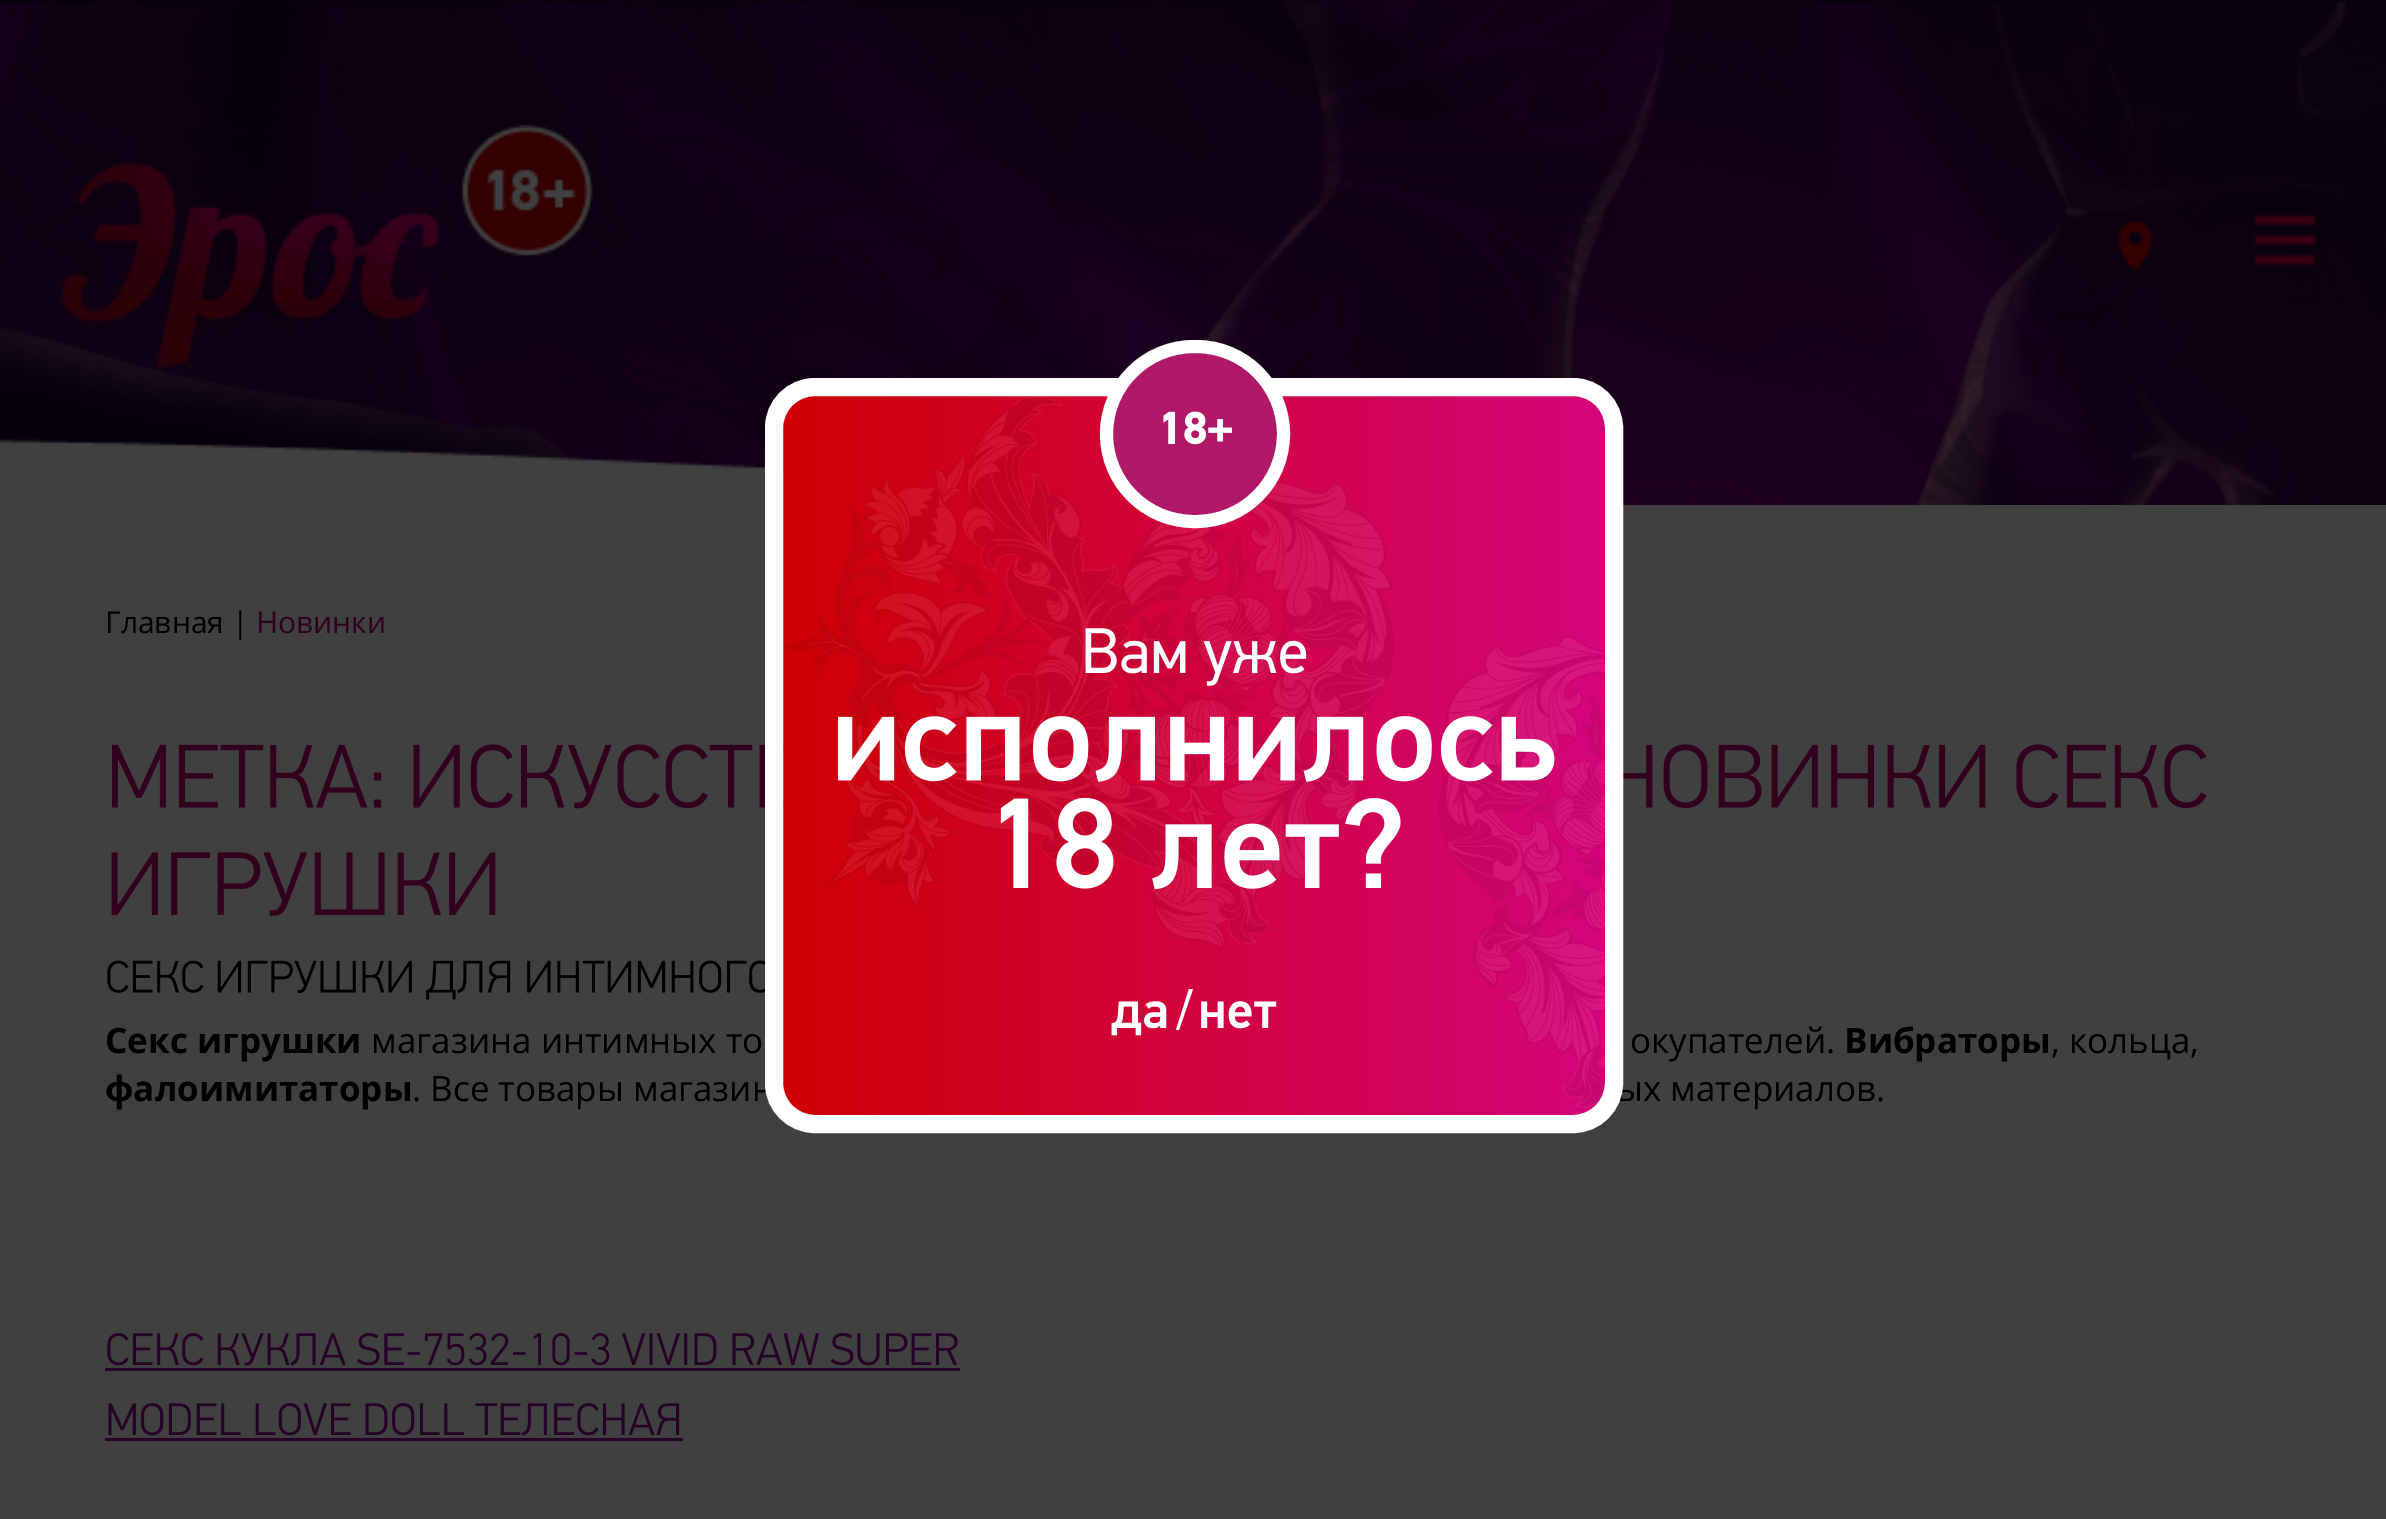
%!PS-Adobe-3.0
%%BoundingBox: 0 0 2386 1519
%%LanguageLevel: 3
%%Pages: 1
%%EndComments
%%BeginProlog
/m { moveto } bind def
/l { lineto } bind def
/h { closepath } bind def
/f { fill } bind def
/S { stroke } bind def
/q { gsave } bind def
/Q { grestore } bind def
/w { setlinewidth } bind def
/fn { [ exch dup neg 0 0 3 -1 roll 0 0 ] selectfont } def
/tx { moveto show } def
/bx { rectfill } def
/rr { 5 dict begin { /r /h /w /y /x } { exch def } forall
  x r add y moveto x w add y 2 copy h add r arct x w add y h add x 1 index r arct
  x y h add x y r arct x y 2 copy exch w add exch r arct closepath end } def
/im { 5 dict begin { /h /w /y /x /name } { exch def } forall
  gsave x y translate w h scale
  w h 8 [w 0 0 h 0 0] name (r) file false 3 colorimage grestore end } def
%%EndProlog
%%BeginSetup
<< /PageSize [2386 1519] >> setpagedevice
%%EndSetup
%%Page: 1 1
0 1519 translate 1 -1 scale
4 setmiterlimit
0.251 setgray
0 0 2386 1519 bx
(image0.raw) 0 0 2386 505 im
(image1.raw) 62 125 531 245 im
(image2.raw) 2117 220 36 52 im
(image3.raw) 2254 214 62 52 im
(image11.raw) 111 744 2096 65 im
/OpenSans-Regular 35 fn
0 setgray
(ых материалов.) 1616 1101 tx
(image4.raw) 783 396 840 719 im
(. Все товары магазин) 412 1101 tx
1 setgray
18 w
774 387 840 737 41 rr S
0.69 0.094 0.408 setrgbcolor
1106.5 346.5 177 175 87.5 rr q f Q
1 setgray
13 w
S
(image5.raw) 1163 411 69 34 im
(image6.raw) 1085 628 222 58 im
(image7.raw) 838 716 717 66 im
(image8.raw) 1000 797 401 93 im
(image9.raw) 1111 1001 56 35 im
1179 1030 m 1176 1030 l 1189 989 l 1193 989 l h f
(image10.raw) 1201 1001 76 28 im
/OpenSans-Regular 30 fn
0 setgray
(Главная |) 105 633 tx
0.188 0.008 0.102 setrgbcolor
(Новинки) 256 633 tx
(image12.raw) 111 852 385 64 im
(image13.raw) 107 960 658 40 im
/OpenSans-Bold 35 fn
0 setgray
(Секс игрушки) 105 1053 tx
/OpenSans-Regular 35 fn
(магазина интимных то) 371 1053 tx
(окупателей.) 1630 1053 tx
/OpenSans-Bold 35 fn
(Вибраторы) 1844 1053 tx
/OpenSans-Regular 35 fn
(, кольца,) 2051 1053 tx
/OpenSans-Bold 35 fn
(фалоимитаторы) 105 1101 tx
(image14.raw) 107 1333 851 33 im
0.149 0.008 0.153 setrgbcolor
105 1368 855 3 bx
(image15.raw) 108 1403 572 33 im
105 1438 578 3 bx
showpage
%%EOF
